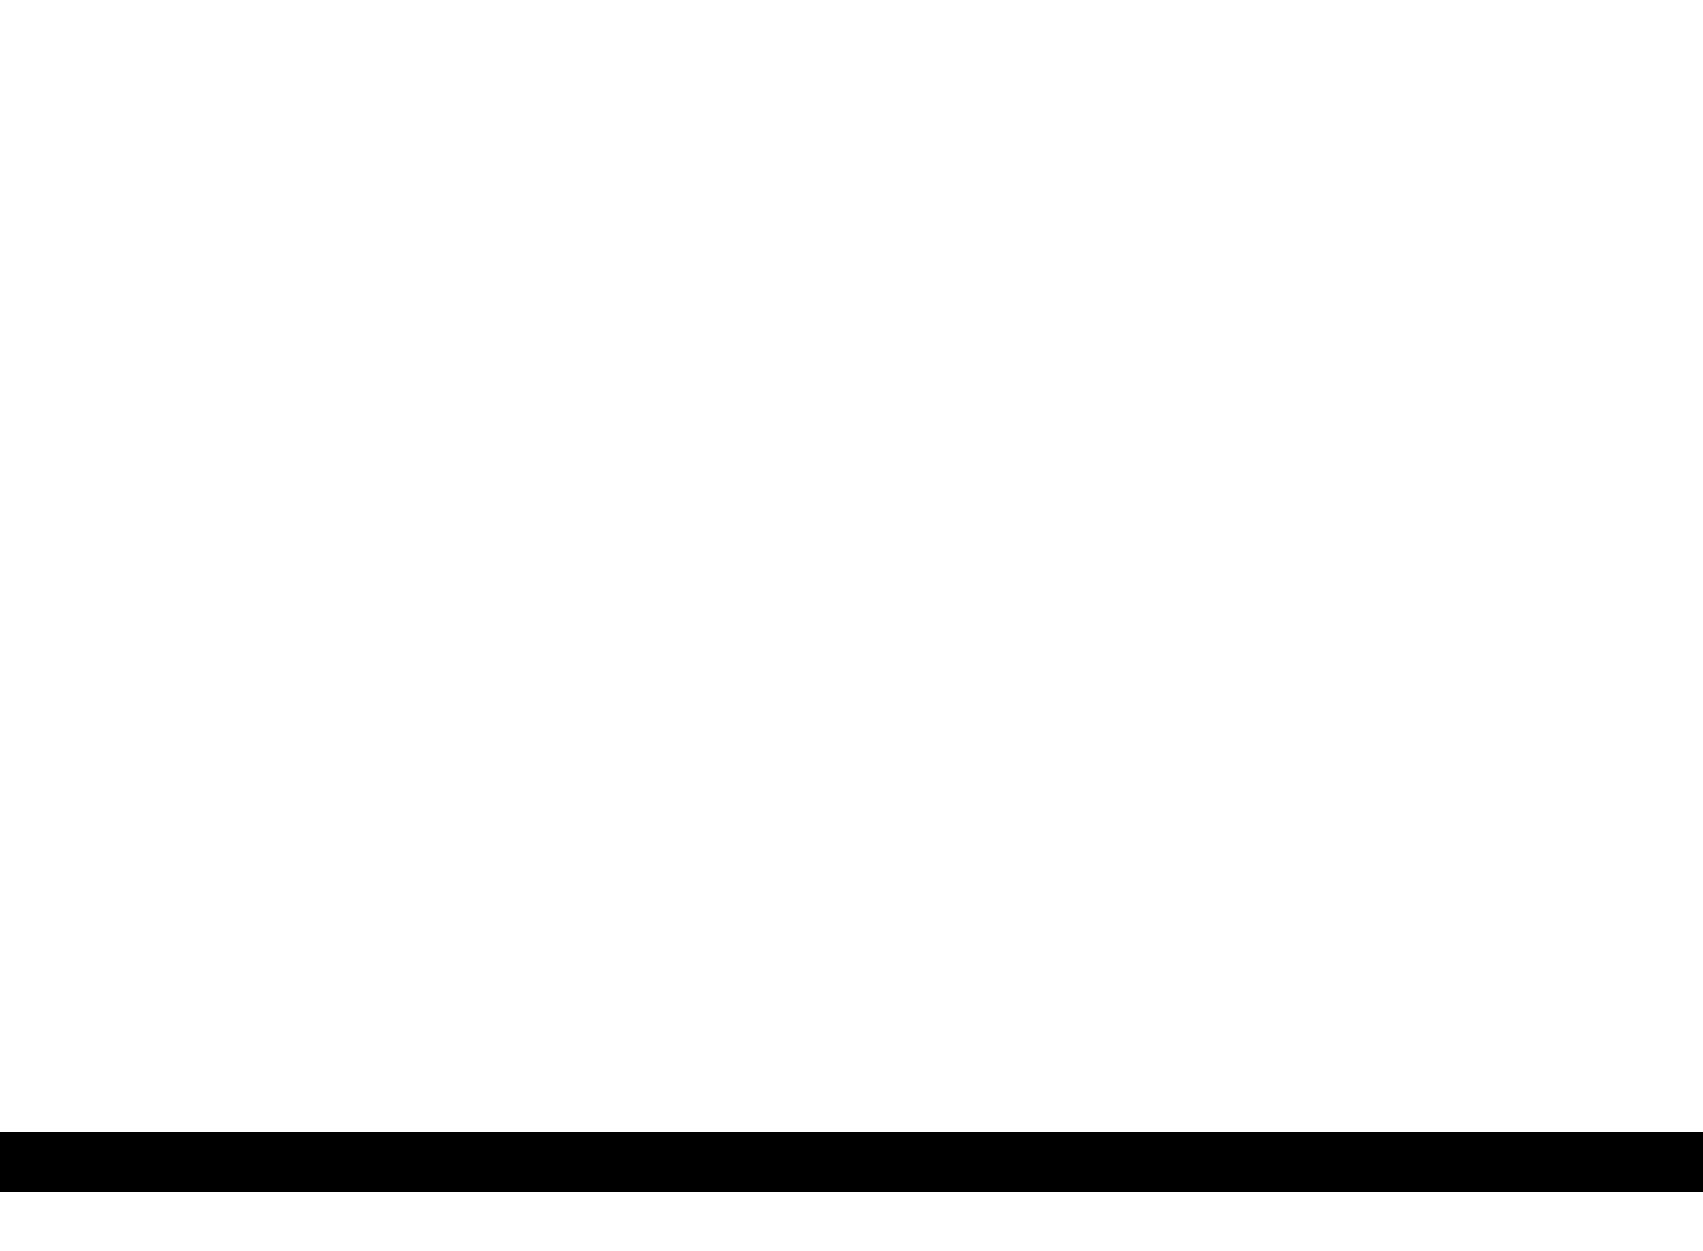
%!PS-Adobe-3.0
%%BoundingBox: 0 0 1703 1251
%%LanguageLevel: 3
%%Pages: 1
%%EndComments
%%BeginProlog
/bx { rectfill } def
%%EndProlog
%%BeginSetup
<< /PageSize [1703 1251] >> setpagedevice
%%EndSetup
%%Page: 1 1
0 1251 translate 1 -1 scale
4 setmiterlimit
1 setgray
0 0 1703 1251 bx
0 setgray
0 1132 1703 60 bx
showpage
%%EOF
